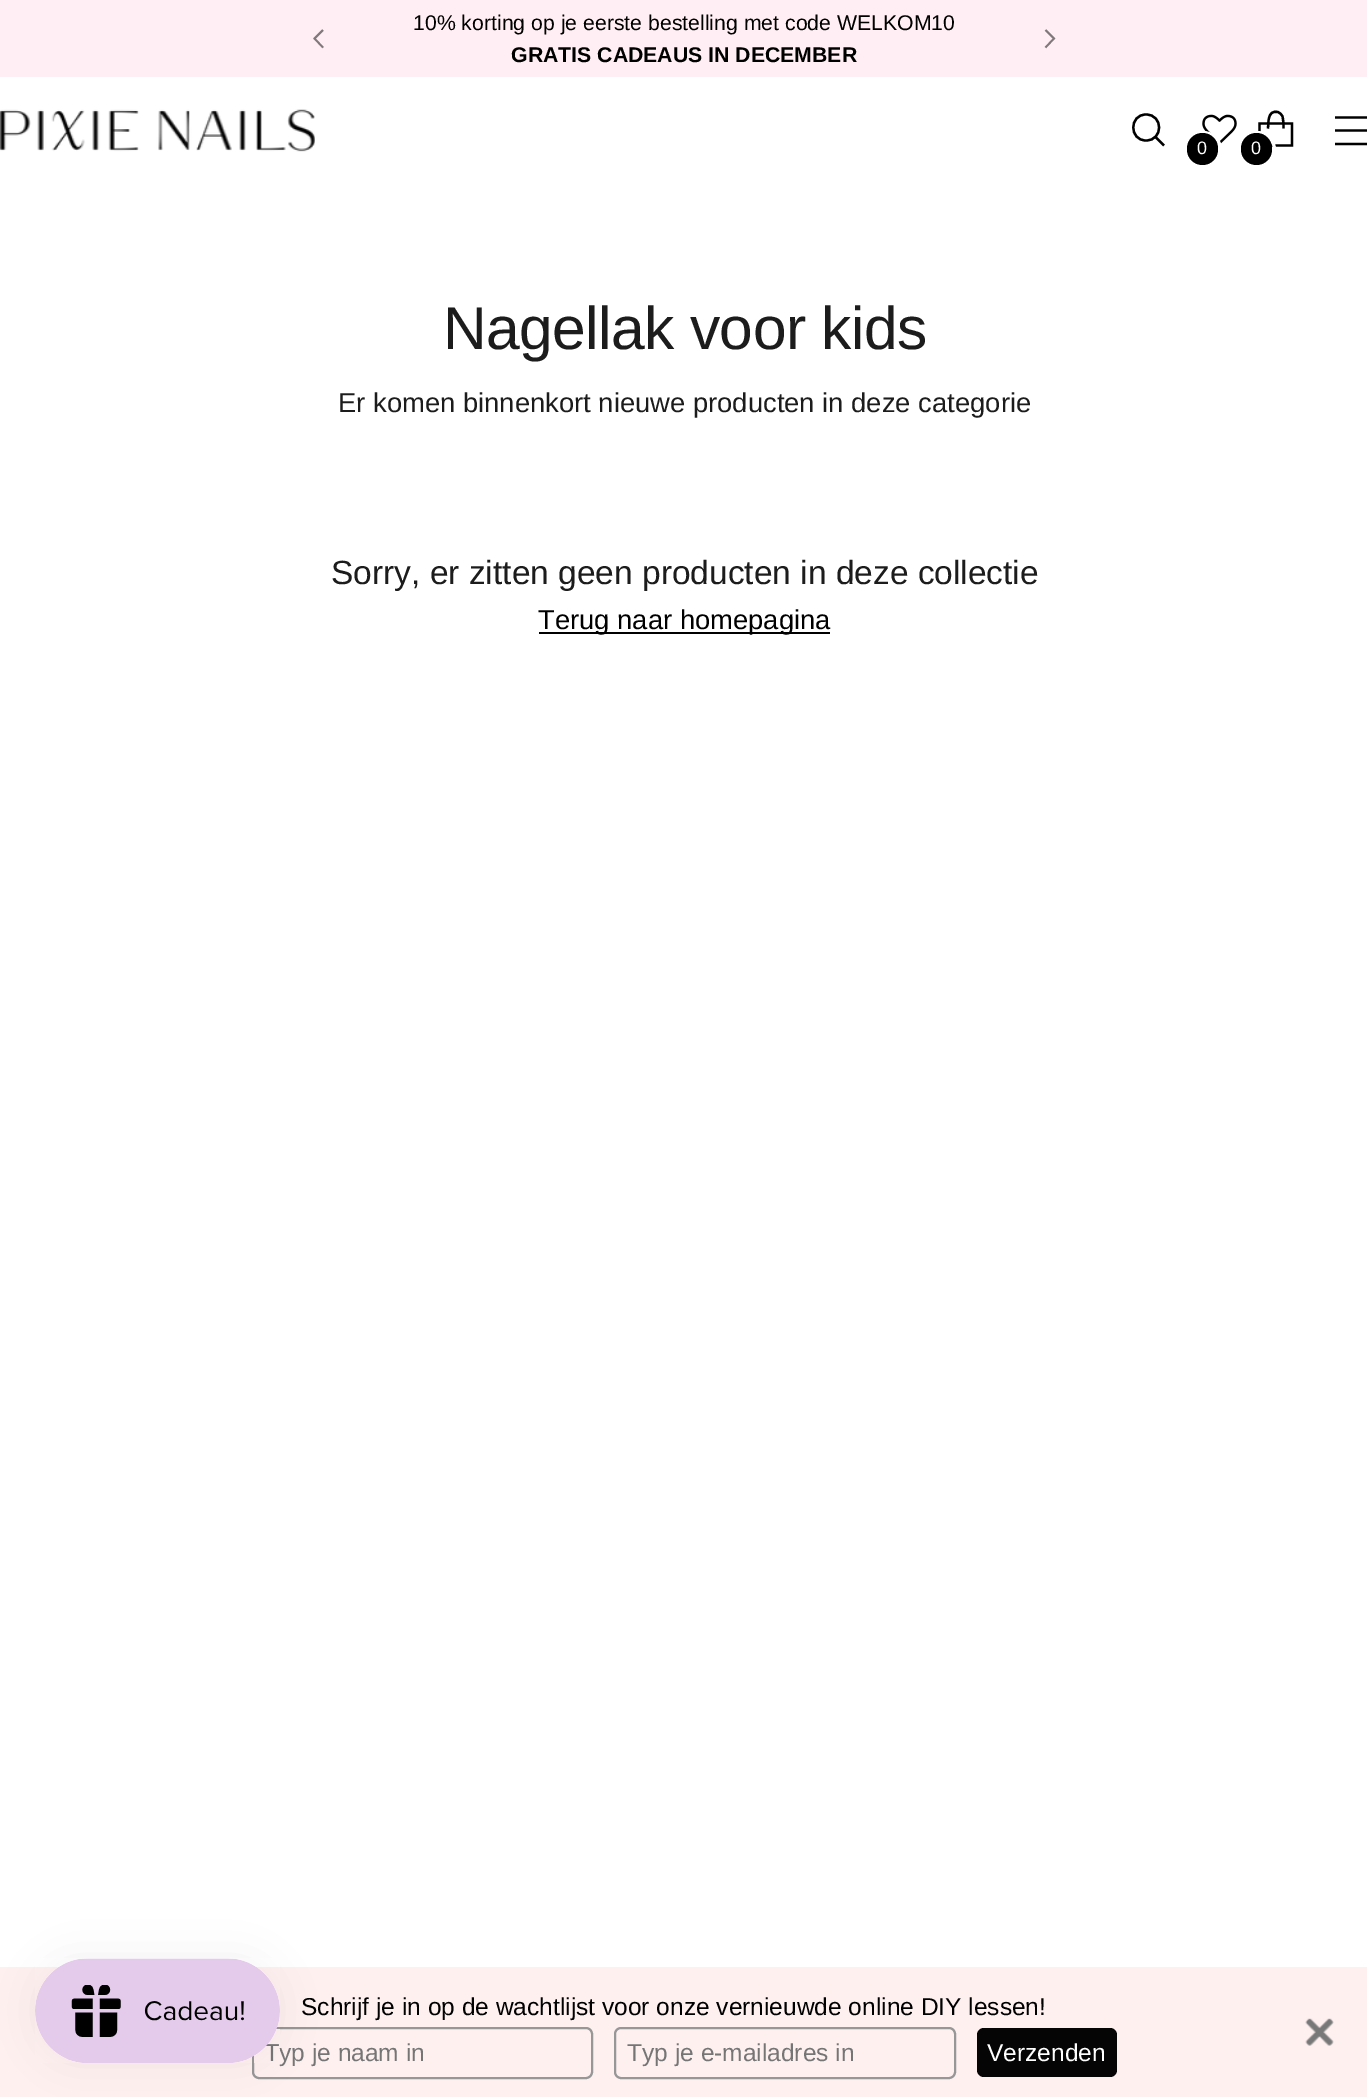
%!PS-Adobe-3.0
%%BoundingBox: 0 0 1367 2097
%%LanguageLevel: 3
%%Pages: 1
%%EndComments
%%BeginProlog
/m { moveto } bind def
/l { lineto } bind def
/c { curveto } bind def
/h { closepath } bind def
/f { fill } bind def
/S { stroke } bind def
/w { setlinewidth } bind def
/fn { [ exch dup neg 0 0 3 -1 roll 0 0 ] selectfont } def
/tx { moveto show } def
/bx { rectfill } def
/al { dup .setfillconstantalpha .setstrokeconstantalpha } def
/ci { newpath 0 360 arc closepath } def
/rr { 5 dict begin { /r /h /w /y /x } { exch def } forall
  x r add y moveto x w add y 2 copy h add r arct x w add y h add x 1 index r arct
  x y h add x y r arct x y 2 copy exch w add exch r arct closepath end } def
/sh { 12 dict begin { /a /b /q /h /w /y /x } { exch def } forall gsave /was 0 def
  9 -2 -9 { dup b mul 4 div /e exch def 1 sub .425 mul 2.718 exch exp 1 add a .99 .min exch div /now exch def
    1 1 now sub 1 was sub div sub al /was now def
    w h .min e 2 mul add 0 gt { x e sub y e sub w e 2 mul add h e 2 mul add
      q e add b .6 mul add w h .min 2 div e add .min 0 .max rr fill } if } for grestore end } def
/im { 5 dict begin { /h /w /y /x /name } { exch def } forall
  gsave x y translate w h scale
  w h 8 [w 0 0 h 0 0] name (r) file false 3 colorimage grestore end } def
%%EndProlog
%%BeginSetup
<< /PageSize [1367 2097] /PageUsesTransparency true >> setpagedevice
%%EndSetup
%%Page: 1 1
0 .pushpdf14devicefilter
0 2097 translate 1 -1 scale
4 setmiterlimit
1 setgray
0 0 1367 2097 bx
1 0.937 0.961 setrgbcolor
0 0 1367 77 bx
/LiberationSans-Regular 21.25 fn
0 setgray
(10% korting op je eerste bestelling met code WELKOM10) 413 30 tx
/LiberationSans-Bold 21.25 fn
(GRATIS CADEAUS IN DECEMBER) 511 62 tx
0.502 0.471 0.482 setrgbcolor
1.8 w
323 30 m 314.5 38.5 l 323 47.5 l S
1045.5 47.5 m 1054 38.5 l 1045.5 30 l S
(image0.raw) 0 109 315 43 im
0 setgray
2.3 w
1 setlinecap
1146 140.5 m 1163.5 140.5 1163.5 114.5 1146 114.5 c 1129 114.5 1129 140.5 1146 140.5 c h S
0 setlinecap
1155.5 137 m 1164 145.5 l S
1335 130.5 m 1367 130.5 l 1335 117.5 m 1367 117.5 l 1335 144 m 1367 144 l S
(image1.raw) 1202 114 35 31 im
1 setgray
3 w
1203.5 149.5 17 ci S
0 setgray
1187 133 31 32 15.5 rr f
/LiberationSans-Regular 18 fn
1 setgray
(0) 1197 154 tx
0 setgray
2.3 w
2 setlinejoin
1283.5 128.5 m 1283.5 124.5 1283.5 120.5 1282.5 116.5 c 1281.5 114.5 1280 112.5 1277.5 112 c 1267.5 110 1268.5 122.5 1268 128.5 c S
0 setlinejoin
1292 145.5 m 1292 123.5 l 1259.5 123.5 l 1259.5 145.5 l h S
1 setgray
3 w
1257.5 149.5 17 ci S
0 setgray
1241 133 31 32 15.5 rr f
1 setgray
(0) 1251 154 tx
/LiberationSans-Regular 60.5 fn
0.11 0.11 0.114 setrgbcolor
443 349 m -0.6 0 (Nagellak voor kids) ashow
/LiberationSans-Regular 27.4 fn
(Er komen binnenkort nieuwe producten in deze categorie) 338 412 tx
/LiberationSans-Regular 33.5 fn
(Sorry, er zitten geen producten in deze collectie) 331 584 tx
0 setgray
539 632 291 2 bx
/LiberationSans-Regular 27.4 fn
(Terug naar homepagina) 538 629 tx
1 0.941 0.941 setrgbcolor
0 1967 1367 130 bx
0.592 setgray
2 w
253 2028 339 50 6 rr S
0 setgray
35 1958 245 105 52.5 22 0.05 sh
/LiberationSans-Regular 24.5 fn
0.459 setgray
(Typ je naam in) 264 2061 tx
(image2.raw) 35 1958 245 105 im
0 setgray
(Schrijf je in op de wachtlijst voor onze vernieuwde online DIY lessen!) 301 2015 tx
0.592 setgray
615 2028 340 50 6 rr S
0.459 setgray
(Typ je e-mailadres in) 627 2061 tx
0.02 setgray
977 2028 140 49 7 rr f
1 setgray
(Verzenden) 987 2061 tx
(image3.raw) 1305 2018 29 28 im
.poppdf14devicefilter showpage
%%EOF
